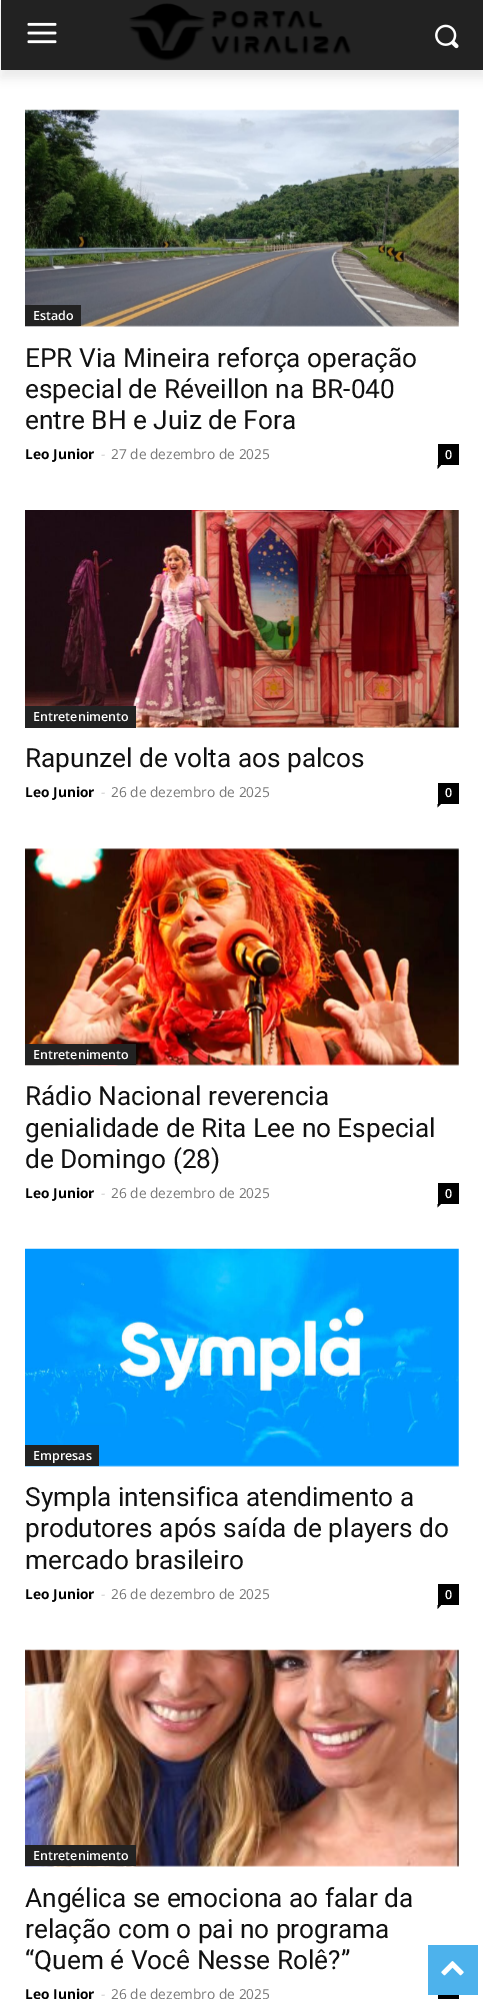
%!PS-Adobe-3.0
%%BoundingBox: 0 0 483 1999
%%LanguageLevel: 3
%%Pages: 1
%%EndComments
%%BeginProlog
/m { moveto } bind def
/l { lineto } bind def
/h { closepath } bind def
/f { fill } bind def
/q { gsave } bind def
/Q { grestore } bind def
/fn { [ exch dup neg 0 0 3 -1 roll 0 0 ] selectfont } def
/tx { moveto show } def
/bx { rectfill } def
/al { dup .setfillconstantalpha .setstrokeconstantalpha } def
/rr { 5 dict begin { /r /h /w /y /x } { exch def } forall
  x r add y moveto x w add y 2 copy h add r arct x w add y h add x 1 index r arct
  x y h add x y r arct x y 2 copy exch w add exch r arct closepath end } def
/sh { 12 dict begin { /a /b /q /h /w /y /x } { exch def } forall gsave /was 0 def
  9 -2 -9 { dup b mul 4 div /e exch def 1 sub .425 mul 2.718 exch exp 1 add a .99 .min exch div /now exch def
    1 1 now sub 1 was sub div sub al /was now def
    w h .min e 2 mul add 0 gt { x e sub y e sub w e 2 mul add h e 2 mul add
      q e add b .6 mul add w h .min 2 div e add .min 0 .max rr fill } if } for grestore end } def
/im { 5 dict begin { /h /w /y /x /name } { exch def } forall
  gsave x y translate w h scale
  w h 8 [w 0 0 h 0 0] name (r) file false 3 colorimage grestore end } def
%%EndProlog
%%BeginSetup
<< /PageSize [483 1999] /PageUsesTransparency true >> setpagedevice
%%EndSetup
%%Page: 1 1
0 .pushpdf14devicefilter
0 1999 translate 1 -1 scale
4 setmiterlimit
1 setgray
0 0 483 1999 bx
0.133 setgray
1 0 482 70 bx
(image0.raw) 27 22 30 22 im
(image1.raw) 129 3 222 58 im
(image2.raw) 435 24 24 25 im
q
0 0 m 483 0 l 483 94 l 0 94 l h 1 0 m 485 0 l 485 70 l 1 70 l h eoclip newpath
0 setgray
1 8 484 70 0 5 0.08 sh
Q
(image3.raw) 25 109 434 218 im
25 305 56 21 bx
/OpenSans-SemiBold 12.5 fn
1 setgray
(Estado) 33 320 tx
/Roboto-Regular 26.25 fn
0.067 setgray
(EPR Via Mineira reforça operação) 25 367 tx
(especial de Réveillon na BR-040) 25 398 tx
(entre BH e Juiz de Fora) 25 429 tx
/OpenSans-Bold 13.75 fn
0 setgray
(Leo Junior) 25 459 tx
/OpenSans-Regular 13.75 fn
0.8 setgray
(-) 101 459 tx
0.463 setgray
(27 de dezembro de 2025) 111 459 tx
0 setgray
438 444 21 21 bx
/OpenSans-SemiBold 12.5 fn
1 setgray
(0) 445 459 tx
0 setgray
437.5 465 m 441 465 l 437.5 469 l h f
(image4.raw) 25 510 434 218 im
0.133 setgray
25 706 111 22 bx
1 setgray
(Entretenimento) 33 721 tx
/Roboto-Regular 26.25 fn
0.067 setgray
(Rapunzel de volta aos palcos) 25 767 tx
/OpenSans-Bold 13.75 fn
0 setgray
(Leo Junior) 25 797 tx
/OpenSans-Regular 13.75 fn
0.8 setgray
(-) 101 797 tx
0.463 setgray
(26 de dezembro de 2025) 111 797 tx
0 setgray
438 783 21 21 bx
/OpenSans-SemiBold 12.5 fn
1 setgray
(0) 445 797 tx
0 setgray
437.5 804 m 441 804 l 437.5 807.5 l h f
(image5.raw) 25 848 434 218 im
0.133 setgray
25 1044 111 21 bx
1 setgray
(Entretenimento) 33 1059 tx
/Roboto-Regular 26.25 fn
0.067 setgray
(Rádio Nacional reverencia) 25 1105 tx
(genialidade de Rita Lee no Especial) 25 1137 tx
(de Domingo \(28\)) 25 1168 tx
/OpenSans-Bold 13.75 fn
0 setgray
(Leo Junior) 25 1198 tx
/OpenSans-Regular 13.75 fn
0.8 setgray
(-) 101 1198 tx
0.463 setgray
(26 de dezembro de 2025) 111 1198 tx
0 setgray
438 1183 21 21 bx
/OpenSans-SemiBold 12.5 fn
1 setgray
(0) 445 1198 tx
0 setgray
437.5 1204 m 441 1204 l 437.5 1207.5 l h f
(image6.raw) 25 1248 434 219 im
0.133 setgray
25 1445 74 21 bx
1 setgray
(Empresas) 33 1460 tx
/Roboto-Regular 26.25 fn
0.067 setgray
(Sympla intensifica atendimento a) 25 1506 tx
(produtores após saída de players do) 25 1537 tx
(mercado brasileiro) 25 1569 tx
/OpenSans-Bold 13.75 fn
0 setgray
(Leo Junior) 25 1599 tx
/OpenSans-Regular 13.75 fn
0.8 setgray
(-) 101 1599 tx
0.463 setgray
(26 de dezembro de 2025) 111 1599 tx
0 setgray
438 1584 21 21 bx
/OpenSans-SemiBold 12.5 fn
1 setgray
(0) 445 1599 tx
0 setgray
437.5 1605 m 441 1605 l 437.5 1609 l h f
(image7.raw) 25 1649 434 218 im
0.133 setgray
25 1845 111 21 bx
1 setgray
(Entretenimento) 33 1860 tx
/Roboto-Regular 26.25 fn
0.067 setgray
(Angélica se emociona ao falar da) 25 1907 tx
(relação com o pai no programa) 25 1938 tx
(“Quem é Você Nesse Rolê?”) 25 1969 tx
/OpenSans-Bold 13.75 fn
0 setgray
(Leo Junior) 25 1999 tx
/OpenSans-Regular 13.75 fn
0.8 setgray
(-) 101 1999 tx
0.463 setgray
(26 de dezembro de 2025) 111 1999 tx
0 setgray
438 1995 21 4 bx
0.302 0.698 0.925 setrgbcolor
428 1945 50 50 bx
(image8.raw) 441 1961 23 15 im
.poppdf14devicefilter showpage
%%EOF
